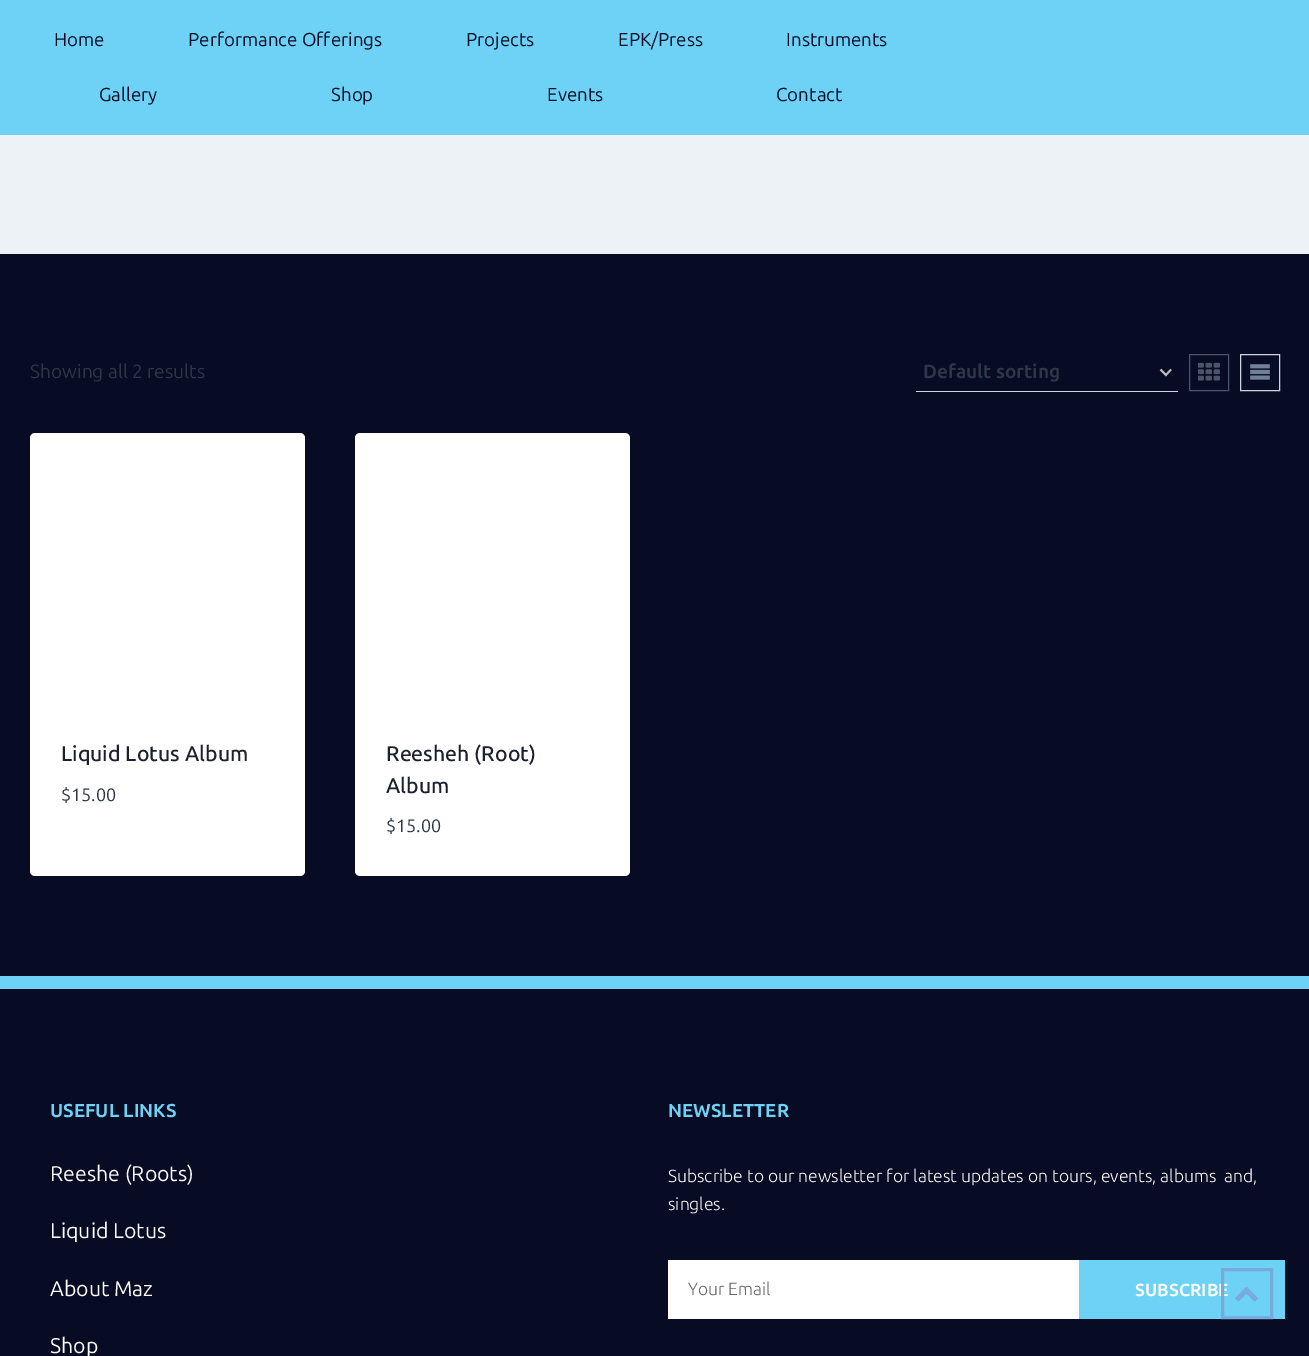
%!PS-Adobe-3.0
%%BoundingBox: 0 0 1309 1356
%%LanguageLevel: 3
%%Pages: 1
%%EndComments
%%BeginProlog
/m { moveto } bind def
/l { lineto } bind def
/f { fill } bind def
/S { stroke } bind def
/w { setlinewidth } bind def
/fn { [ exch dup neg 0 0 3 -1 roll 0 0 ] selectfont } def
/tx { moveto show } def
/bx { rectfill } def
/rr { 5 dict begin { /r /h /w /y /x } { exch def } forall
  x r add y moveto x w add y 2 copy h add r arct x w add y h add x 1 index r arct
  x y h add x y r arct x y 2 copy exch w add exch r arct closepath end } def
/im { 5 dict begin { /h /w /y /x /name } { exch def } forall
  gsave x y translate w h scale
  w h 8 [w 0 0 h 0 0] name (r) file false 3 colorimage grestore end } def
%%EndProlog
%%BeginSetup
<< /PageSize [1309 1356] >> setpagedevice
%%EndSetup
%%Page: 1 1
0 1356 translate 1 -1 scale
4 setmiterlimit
0.027 0.043 0.137 setrgbcolor
0 0 1309 1356 bx
0.427 0.824 0.965 setrgbcolor
0 0 1309 135 bx
/Ubuntu-Regular 18.75 fn
0.027 0.043 0.137 setrgbcolor
(Home) 54 46 tx
(Performance Offerings) 188 46 tx
(Projects) 466 46 tx
(EPK/Press) 618 46 tx
(Instruments) 786 46 tx
(Gallery) 99 101 tx
(Shop) 331 101 tx
(Events) 547 101 tx
(Contact) 776 101 tx
0.929 0.949 0.969 setrgbcolor
0 135 1309 119 bx
/Ubuntu-Regular 19.1 fn
0.176 0.216 0.282 setrgbcolor
(Showing all 2 results) 30 378 tx
0.733 setgray
1.8 w
1160.5 369.5 m 1166 375 l 1171 369.5 l S
0.796 0.835 0.878 setrgbcolor
916 391 262 1 bx
/Ubuntu-Bold 19.1 fn
0.176 0.216 0.282 setrgbcolor
(Default sorting) 923 378 tx
0.29 0.333 0.408 setrgbcolor
1 w
1189.5 354.5 39 36 rectstroke
(image0.raw) 1198 362 22 19 im
0.796 0.835 0.878 setrgbcolor
1240.5 354.5 39 36 rectstroke
(image1.raw) 1250 364 20 16 im
1 setgray
30 433 275 443 5 rr f
/Ubuntu-Medium 21.25 fn
0.102 0.125 0.173 setrgbcolor
(Liquid Lotus Album) 61 761 tx
/Ubuntu-Regular 18 fn
0.176 0.216 0.282 setrgbcolor
($15.00) 61 801 tx
1 setgray
355 433 275 443 5 rr f
/Ubuntu-Medium 21.25 fn
0.102 0.125 0.173 setrgbcolor
(Reesheh \(Root\)) 386 761 tx
(Album) 386 793 tx
/Ubuntu-Regular 18 fn
0.176 0.216 0.282 setrgbcolor
($15.00) 386 832 tx
0.427 0.824 0.965 setrgbcolor
0 976 1309 13 bx
/Ubuntu-Bold 18.75 fn
(USEFUL LINKS) 50 1117 tx
/Ubuntu-Regular 21.25 fn
1 setgray
(Reeshe \(Roots\)) 50 1181 tx
(Liquid Lotus) 50 1238 tx
(About Maz) 50 1296 tx
(Shop) 50 1353 tx
/Ubuntu-Bold 18.75 fn
0.427 0.824 0.965 setrgbcolor
(NEWSLETTER) 668 1117 tx
/Ubuntu-Light 17.5 fn
1 setgray
(Subscribe to our newsletter for latest updates on tours, events, albums  and,) 668 1182 tx
(singles.) 668 1210 tx
668 1260 411 59 bx
0.4 setgray
(Your Email) 688 1295 tx
0.427 0.824 0.965 setrgbcolor
1079 1260 206 59 bx
/Ubuntu-Bold 17.5 fn
1 setgray
(SUBSCRIBE) 1135 1296 tx
0.467 0.671 0.859 setrgbcolor
3 w
1222.5 1269.5 49 48 rectstroke
(image2.raw) 1235 1287 23 15 im
showpage
%%EOF
